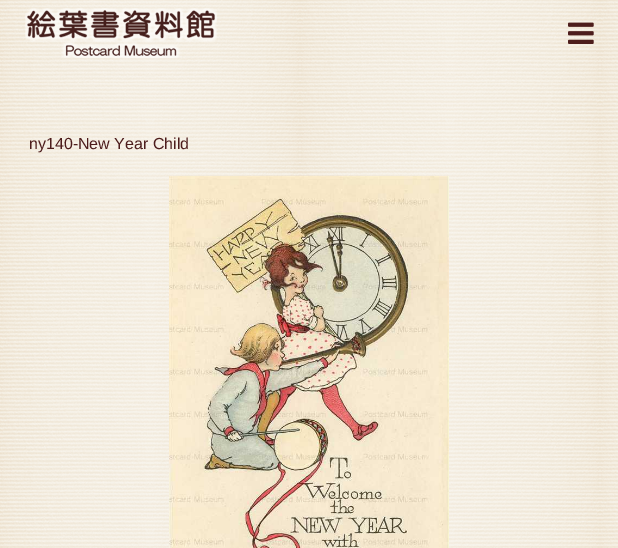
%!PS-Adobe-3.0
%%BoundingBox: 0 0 618 548
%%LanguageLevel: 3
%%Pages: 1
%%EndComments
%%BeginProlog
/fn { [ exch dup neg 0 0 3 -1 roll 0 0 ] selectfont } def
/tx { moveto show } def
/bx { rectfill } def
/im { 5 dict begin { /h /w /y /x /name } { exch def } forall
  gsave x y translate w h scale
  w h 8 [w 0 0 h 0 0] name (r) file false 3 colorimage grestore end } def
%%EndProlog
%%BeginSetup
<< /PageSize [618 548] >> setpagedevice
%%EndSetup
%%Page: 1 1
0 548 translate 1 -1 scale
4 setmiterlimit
1 setgray
0 0 618 548 bx
(image0.raw) 0 0 618 548 im
(image1.raw) 25 8 192 50 im
(image2.raw) 568 22 26 22 im
/LiberationSans-Regular 16 fn
0.302 0.114 0.11 setrgbcolor
(ny140-New Year Child) 29 149 tx
(image3.raw) 169 176 280 372 im
showpage
%%EOF
